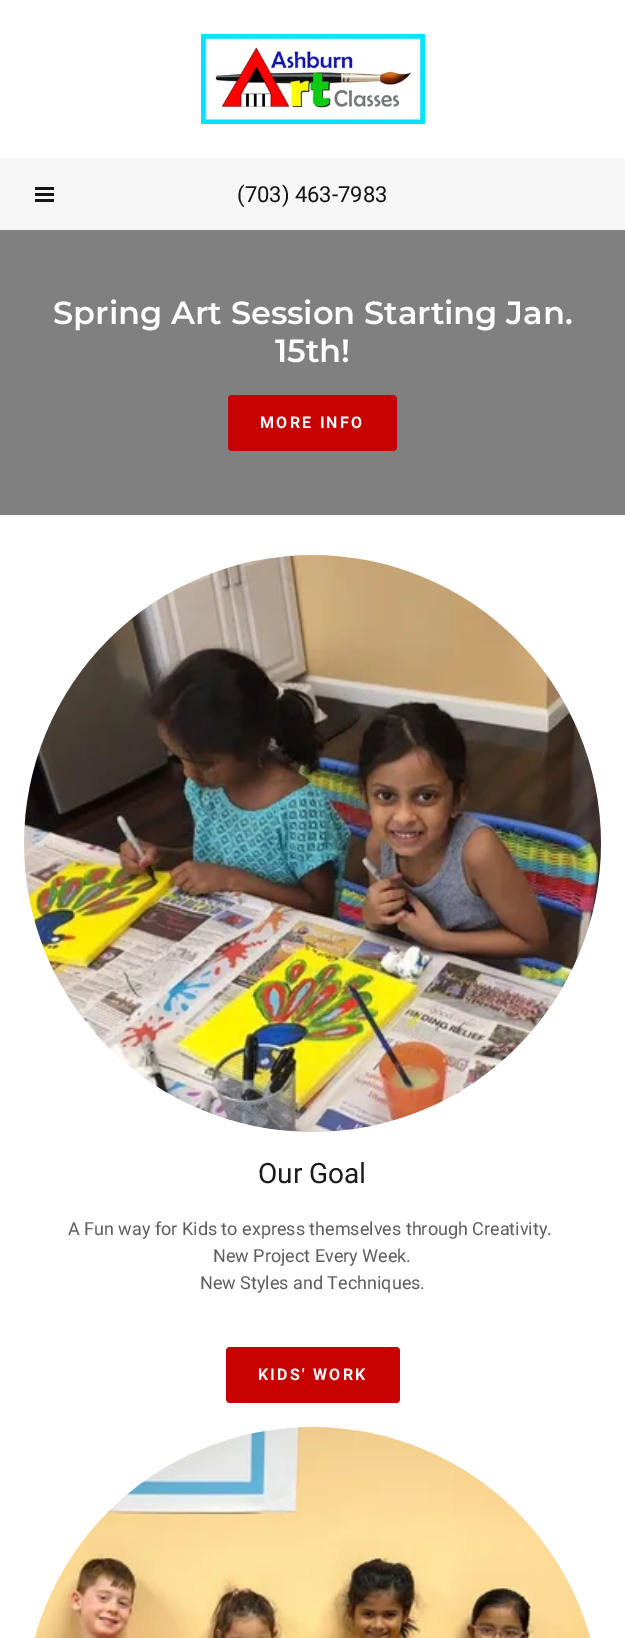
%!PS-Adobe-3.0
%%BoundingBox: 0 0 625 1638
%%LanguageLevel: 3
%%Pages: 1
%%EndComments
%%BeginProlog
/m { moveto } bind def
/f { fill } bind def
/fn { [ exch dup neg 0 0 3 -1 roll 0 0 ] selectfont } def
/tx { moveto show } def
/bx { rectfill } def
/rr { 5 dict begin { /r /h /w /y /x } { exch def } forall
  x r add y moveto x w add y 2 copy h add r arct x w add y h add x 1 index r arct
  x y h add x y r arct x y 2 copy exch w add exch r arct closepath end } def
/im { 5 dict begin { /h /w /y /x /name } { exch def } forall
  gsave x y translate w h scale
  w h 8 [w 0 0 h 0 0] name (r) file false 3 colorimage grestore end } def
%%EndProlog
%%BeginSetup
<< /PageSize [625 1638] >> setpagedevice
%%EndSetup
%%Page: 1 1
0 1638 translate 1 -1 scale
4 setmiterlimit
1 setgray
0 0 625 1638 bx
(image0.raw) 201 34 224 90 im
0.965 setgray
0 158 625 72 bx
0.082 setgray
35 187 19 3 bx
35 193 19 3 bx
35 199 19 3 bx
/Roboto-Regular 22 fn
(\(703\) 463-7983) 237 202 tx
0.502 setgray
0 230 625 285 bx
/Montserrat-SemiBold 32 fn
1 setgray
(Spring Art Session Starting Jan.) 53 324 tx
(15th!) 275 362 tx
0.78 0 0 setrgbcolor
228 395 169 56 4 rr f
/Roboto-Bold 16 fn
1 setgray
260 428 m 2.25 0 (MORE INFO) ashow
(image1.raw) 24 555 577 577 im
/Roboto-Regular 28 fn
0.106 setgray
(Our Goal) 258 1183 tx
/Roboto-Regular 18 fn
0.369 setgray
(A Fun way for Kids to express themselves through Creativity.) 68 1235 tx
(New Project Every Week.) 213 1262 tx
(New Styles and Techniques.) 200 1289 tx
0.78 0 0 setrgbcolor
226 1347 174 56 4 rr f
/Roboto-Bold 16 fn
1 setgray
258 1380 m 2.25 0 (KIDS' WORK) ashow
(image2.raw) 34 1427 557 211 im
showpage
%%EOF
